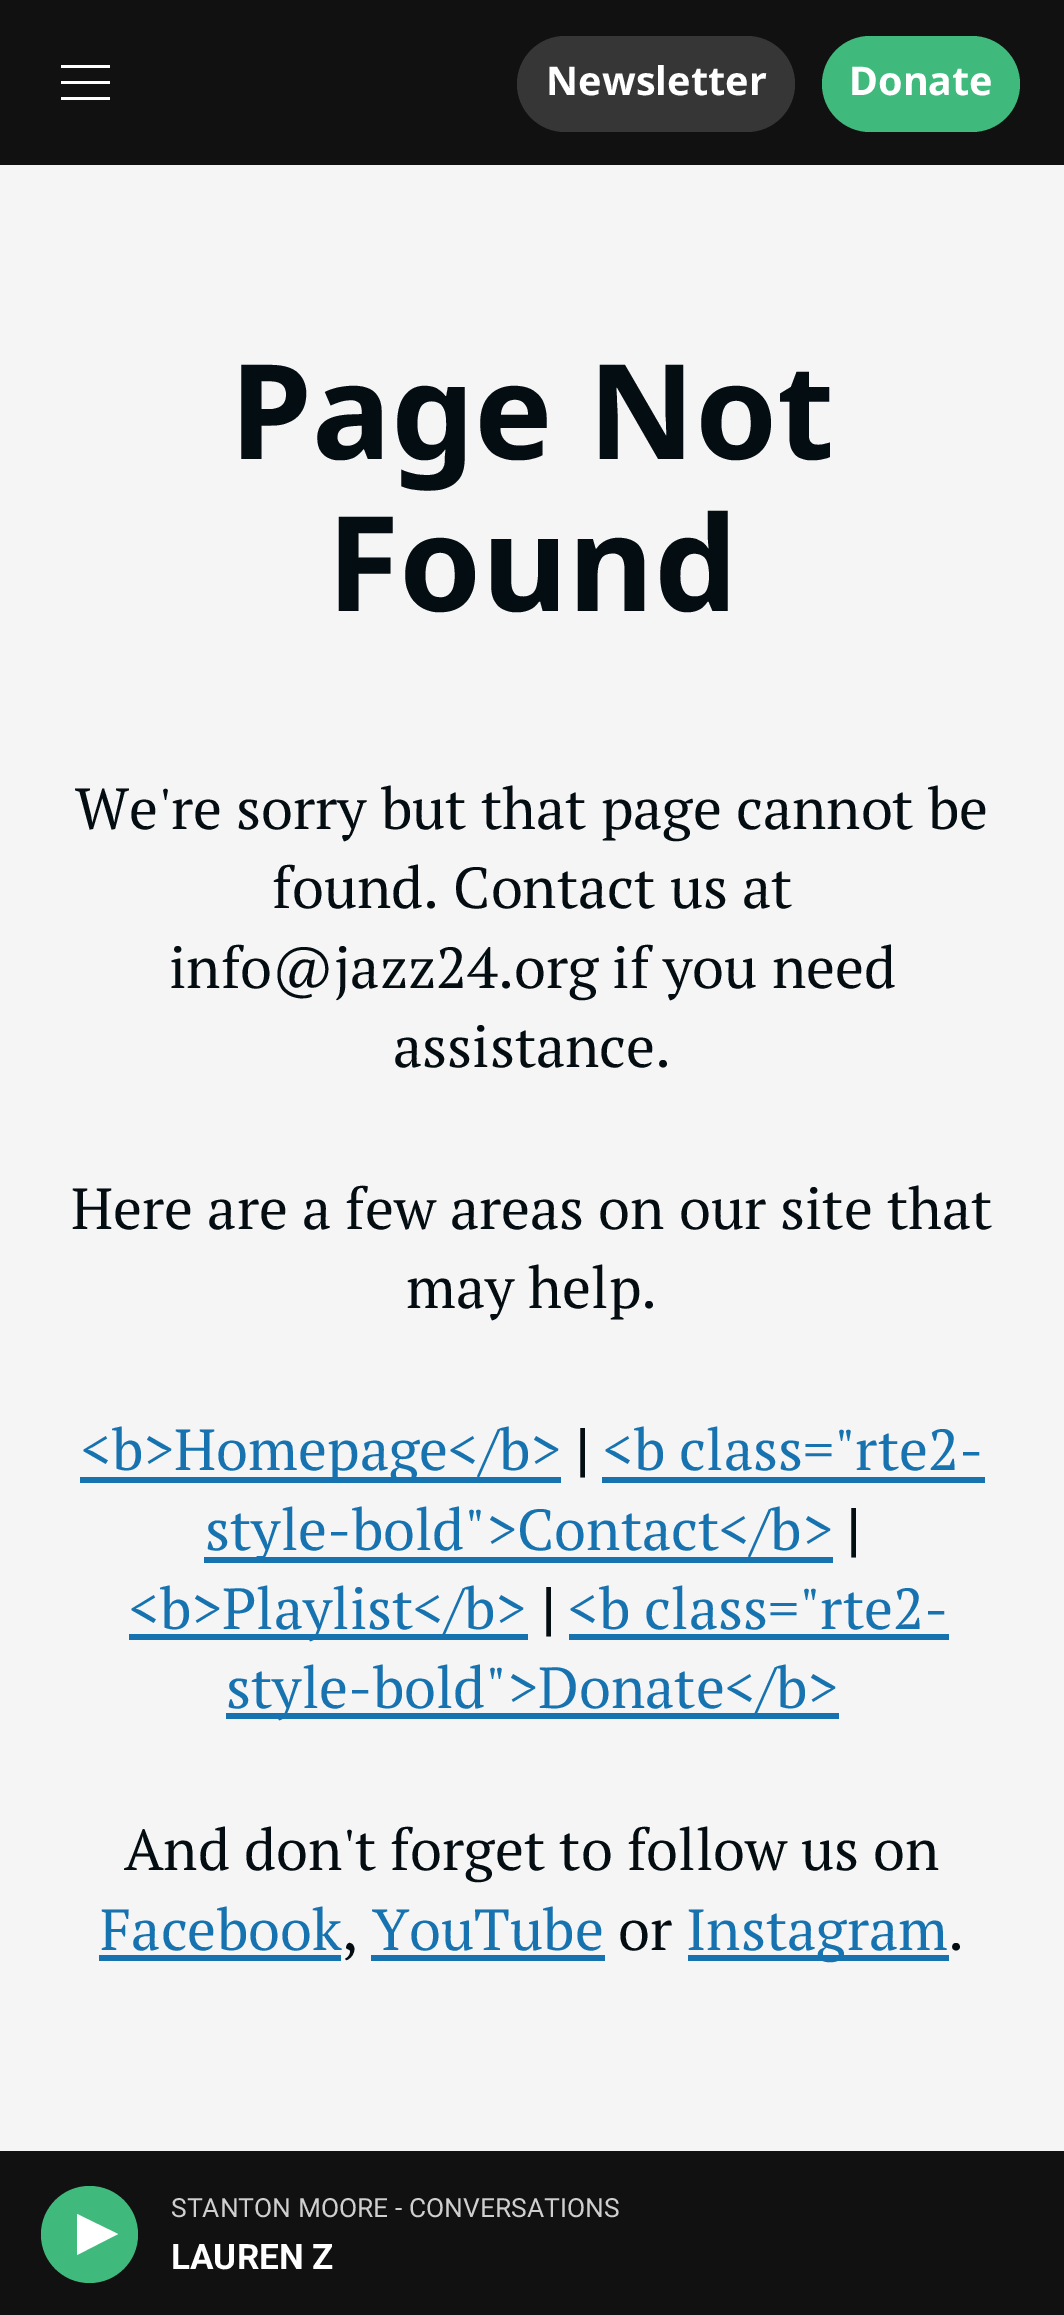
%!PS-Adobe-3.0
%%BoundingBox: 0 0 1064 2315
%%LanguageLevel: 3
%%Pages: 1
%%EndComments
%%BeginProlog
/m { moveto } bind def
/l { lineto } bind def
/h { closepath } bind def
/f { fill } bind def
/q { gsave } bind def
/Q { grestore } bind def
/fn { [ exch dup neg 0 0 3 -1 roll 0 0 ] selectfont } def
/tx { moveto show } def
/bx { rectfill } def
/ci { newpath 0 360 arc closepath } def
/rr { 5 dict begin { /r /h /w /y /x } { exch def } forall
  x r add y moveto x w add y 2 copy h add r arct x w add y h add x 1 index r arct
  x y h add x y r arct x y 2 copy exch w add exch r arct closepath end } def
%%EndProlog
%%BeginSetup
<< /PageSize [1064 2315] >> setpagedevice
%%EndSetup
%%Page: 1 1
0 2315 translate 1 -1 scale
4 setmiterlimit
0.961 setgray
0 0 1064 2315 bx
0.067 setgray
0 0 1064 165 bx
q
61 58 49 49 rectclip
1 setgray
60 84 m 60 81 l 110 81 l 110 84 l h 60 68 m 60 65 l 110 65 l 110 68 l h 60 100 m 60 97 l 110 97 l 110 100 l h eofill
Q
0.212 setgray
517 36 278 96 48 rr f
/NotoSans-Bold 39.5 fn
1 setgray
(Newsletter) 546 95 tx
0.251 0.725 0.486 setrgbcolor
822 36 198 96 48 rr f
1 setgray
(Donate) 849 95 tx
0.067 setgray
0 2151 1064 164 bx
0.251 0.725 0.486 setrgbcolor
89.5 2234.5 48.5 ci f
1 setgray
77 2214 m 118 2234 l 77 2255 l h f
/Roboto-Regular 26.4 fn
0.812 setgray
(STANTON MOORE - CONVERSATIONS) 171 2217 tx
/Roboto-Bold 35 fn
1 setgray
(LAUREN Z) 171 2269 tx
/NotoSans-Bold 132 fn
0.016 0.051 0.071 setrgbcolor
(Page Not) 230 459 tx
(Found) 327 611 tx
/PTSerif-Regular 57.75 fn
(We're sorry but that page cannot be) 75 829 tx
(found. Contact us at) 272 908 tx
(info@jazz24.org if you need) 169 988 tx
(assistance.) 393 1067 tx
(Here are a few areas on our site that) 71 1229 tx
(may help.) 406 1308 tx
0.09 0.447 0.69 setrgbcolor
80 1477 481 6 bx
(<b>Homepage</b>) 81 1470 tx
/PTSerif-Bold 57.75 fn
0.016 0.051 0.071 setrgbcolor
(|) 575 1470 tx
/PTSerif-Regular 57.75 fn
0.09 0.447 0.69 setrgbcolor
(<b class="rte2-) 603 1470 tx
602 1477 383 6 bx
204 1557 629 6 bx
(style-bold">Contact</b>) 205 1550 tx
/PTSerif-Bold 57.75 fn
0.016 0.051 0.071 setrgbcolor
(|) 846 1550 tx
0.09 0.447 0.69 setrgbcolor
129 1634 399 6 bx
/PTSerif-Regular 57.75 fn
(<b>Playlist</b>) 129 1629 tx
/PTSerif-Bold 57.75 fn
0.016 0.051 0.071 setrgbcolor
(|) 541 1629 tx
/PTSerif-Regular 57.75 fn
0.09 0.447 0.69 setrgbcolor
(<b class="rte2-) 568 1629 tx
569 1634 380 6 bx
226 1713 613 6 bx
(style-bold">Donate</b>) 226 1708 tx
0.016 0.051 0.071 setrgbcolor
(And don't forget to follow us on) 124 1870 tx
0.09 0.447 0.69 setrgbcolor
(Facebook) 100 1950 tx
99 1955 242 6 bx
0.016 0.051 0.071 setrgbcolor
(,) 342 1950 tx
0.09 0.447 0.69 setrgbcolor
(YouTube) 372 1950 tx
371 1955 234 6 bx
0.016 0.051 0.071 setrgbcolor
(or) 618 1950 tx
0.09 0.447 0.69 setrgbcolor
688 1955 261 6 bx
(Instagram) 686 1950 tx
0.016 0.051 0.071 setrgbcolor
(.) 948 1950 tx
showpage
%%EOF
